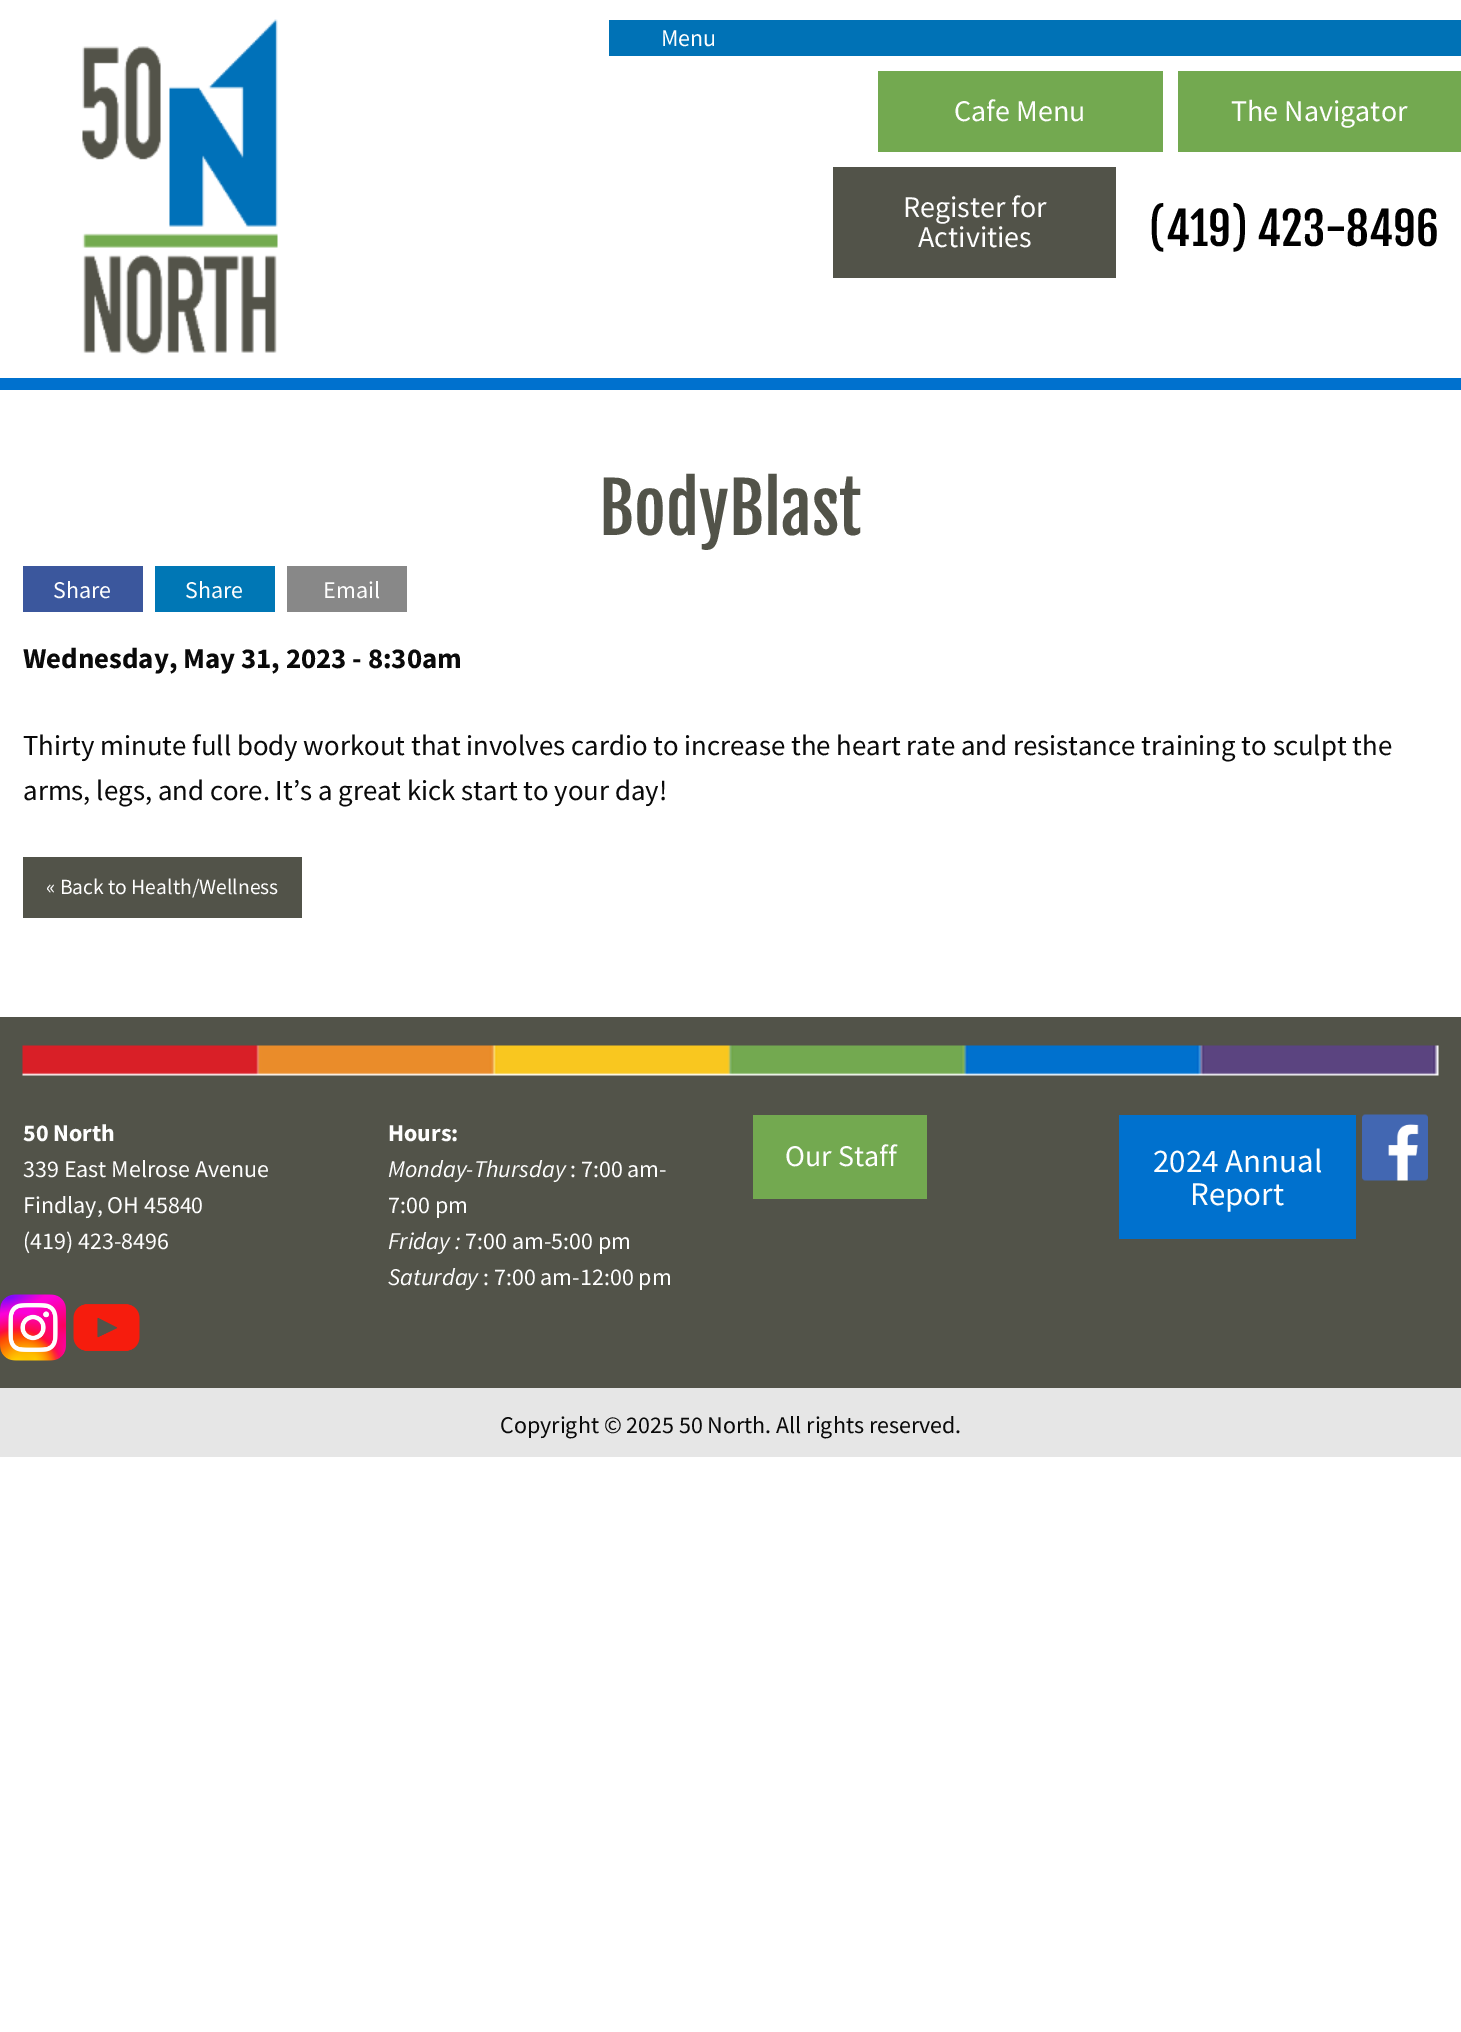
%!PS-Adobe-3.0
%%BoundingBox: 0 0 1461 2032
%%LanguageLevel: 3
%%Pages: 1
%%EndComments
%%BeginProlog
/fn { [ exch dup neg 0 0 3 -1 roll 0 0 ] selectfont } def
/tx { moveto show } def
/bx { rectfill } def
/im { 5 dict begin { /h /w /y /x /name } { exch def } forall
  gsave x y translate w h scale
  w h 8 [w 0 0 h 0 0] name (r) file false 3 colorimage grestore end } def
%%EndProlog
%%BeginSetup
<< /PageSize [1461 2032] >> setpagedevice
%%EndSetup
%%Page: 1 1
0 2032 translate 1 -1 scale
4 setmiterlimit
1 setgray
0 0 1461 2032 bx
0 0.443 0.808 setrgbcolor
0 378 1461 12 bx
(image0.raw) 82 19 196 336 im
0 0.447 0.714 setrgbcolor
609 20 852 36 bx
/SourceSansPro-Regular 24 fn
0.996 setgray
(Menu) 661 46 tx
0.451 0.663 0.314 setrgbcolor
878 71 285 81 bx
/SourceSansPro-Regular 30 fn
0.996 setgray
(Cafe Menu) 954 121 tx
0.451 0.663 0.314 setrgbcolor
1178 71 283 81 bx
0.996 setgray
(The Navigator) 1231 121 tx
0.322 0.325 0.286 setrgbcolor
833 167 283 111 bx
0.996 setgray
(Register for) 903 217 tx
(Activities) 918 247 tx
/FjallaOne-Regular 45 fn
0 setgray
(\(419\) 423-8496) 1149 246 tx
/FjallaOne-Regular 69 fn
0.322 0.325 0.286 setrgbcolor
(BodyBlast) 599 535 tx
0.231 0.341 0.616 setrgbcolor
23 566 120 46 bx
/SourceSansPro-Regular 24 fn
0.996 setgray
(Share) 53 598 tx
0 0.467 0.71 setrgbcolor
155 566 120 46 bx
0.996 setgray
(Share) 185 598 tx
0.533 setgray
287 566 120 46 bx
0.996 setgray
(Email) 323 598 tx
/SourceSansPro-Bold 28.8 fn
0.039 setgray
(Wednesday, May 31, 2023 - 8:30am) 23 668 tx
/SourceSansPro-Regular 28.8 fn
(Thirty minute full body workout that involves cardio to increase the heart rate and resistance training to sculpt the) 23 755 tx
(arms, legs, and core. It’s a great kick start to your day!) 23 800 tx
0.322 0.325 0.286 setrgbcolor
23 857 279 61 bx
/SourceSansPro-Regular 21.6 fn
0.996 setgray
(« Back to Health/Wellness) 46 894 tx
0.322 0.325 0.286 setrgbcolor
0 1017 1461 371 bx
(image1.raw) 22 1045 1417 31 im
/SourceSansPro-Bold 24 fn
0.996 setgray
(50 North) 23 1141 tx
/SourceSansPro-Regular 24 fn
(339 East Melrose Avenue) 23 1177 tx
(Findlay, OH 45840) 23 1213 tx
(\(419\) 423-8496) 23 1249 tx
/SourceSansPro-Bold 24 fn
(Hours:) 388 1141 tx
/SourceSansPro-Italic 24 fn
(Monday-Thursday) 388 1177 tx
/SourceSansPro-Regular 24 fn
(: 7:00 am-) 570 1177 tx
(7:00 pm) 388 1213 tx
/SourceSansPro-Italic 24 fn
(Friday :) 388 1249 tx
/SourceSansPro-Regular 24 fn
(7:00 am-5:00 pm) 465 1249 tx
/SourceSansPro-Italic 24 fn
(Saturday) 388 1285 tx
/SourceSansPro-Regular 24 fn
(: 7:00 am-12:00 pm) 483 1285 tx
0.451 0.663 0.314 setrgbcolor
753 1115 174 84 bx
/SourceSansPro-Regular 30 fn
0.996 setgray
(Our Staff) 785 1166 tx
0 0.443 0.808 setrgbcolor
1119 1115 237 124 bx
/SourceSansPro-Regular 33 fn
0.996 setgray
(2024 Annual) 1153 1172 tx
(Report) 1190 1205 tx
(image2.raw) 1362 1114 66 67 im
(image3.raw) 0 1294 66 67 im
(image4.raw) 73 1304 67 47 im
0.902 setgray
0 1388 1461 69 bx
/SourceSansPro-Regular 24 fn
0.039 setgray
(Copyright © 2025 50 North. All rights reserved.) 500 1433 tx
showpage
%%EOF
